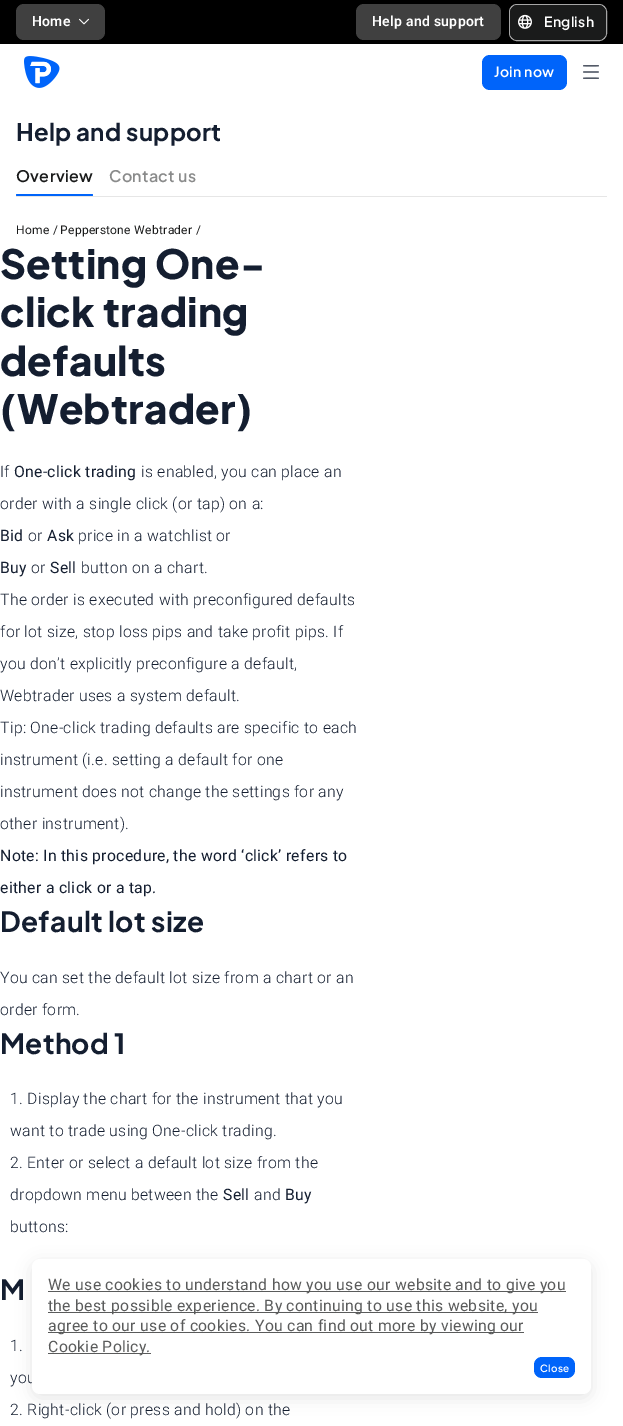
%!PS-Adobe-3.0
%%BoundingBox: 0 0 623 1426
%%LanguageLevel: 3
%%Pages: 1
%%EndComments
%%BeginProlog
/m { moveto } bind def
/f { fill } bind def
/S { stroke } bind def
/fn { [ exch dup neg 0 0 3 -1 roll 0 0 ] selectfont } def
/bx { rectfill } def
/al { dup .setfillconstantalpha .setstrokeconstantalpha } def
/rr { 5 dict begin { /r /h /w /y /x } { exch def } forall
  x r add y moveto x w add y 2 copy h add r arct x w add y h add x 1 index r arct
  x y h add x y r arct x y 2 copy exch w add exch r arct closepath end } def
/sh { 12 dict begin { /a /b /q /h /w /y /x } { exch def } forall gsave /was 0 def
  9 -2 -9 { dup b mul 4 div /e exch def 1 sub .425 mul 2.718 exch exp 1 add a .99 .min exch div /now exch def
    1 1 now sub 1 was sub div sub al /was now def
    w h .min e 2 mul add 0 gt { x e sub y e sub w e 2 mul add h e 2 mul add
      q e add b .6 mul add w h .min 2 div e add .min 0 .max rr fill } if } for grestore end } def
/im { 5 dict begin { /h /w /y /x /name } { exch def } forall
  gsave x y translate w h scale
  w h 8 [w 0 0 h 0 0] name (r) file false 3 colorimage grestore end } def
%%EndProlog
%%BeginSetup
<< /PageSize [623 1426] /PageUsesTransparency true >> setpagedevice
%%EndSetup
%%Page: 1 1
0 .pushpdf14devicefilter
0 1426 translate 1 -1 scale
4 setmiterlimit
1 setgray
0 0 623 1426 bx
0 setgray
0 0 623 44 bx
0.251 setgray
16 4 89 36 8 rr f
/Roboto-SemiBold 14 fn
1 setgray
32 26 m 0.3 0 (Home) ashow
(image0.raw) 79 18 10 7 im
0.251 setgray
356 4 145 36 8 rr f
1 setgray
372 26 m 0.3 0 (Help and support) ashow
0.651 setgray
509.5 4.5 97 36 7.5 rr S
0.102 0.106 0.106 setrgbcolor
510 5 96 35 8 rr f
(image1.raw) 518 14 14 15 im
/PlusJakartaSans-SemiBold 14 fn
1 setgray
544 27 m 0.3 0 (English) ashow
(image2.raw) 24 56 36 32 im
0 0.392 0.98 setrgbcolor
482 55 85 35 8 rr f
1 setgray
494 77 m 0.3 0 (Join now) ashow
(image3.raw) 583 65 16 14 im
/PlusJakartaSans-Bold 24 fn
0.078 0.118 0.188 setrgbcolor
16 141 m 0.3 0 (Help and support) ashow
0.902 setgray
16 196 591 1 bx
/PlusJakartaSans-SemiBold 16 fn
0.102 0.106 0.106 setrgbcolor
16 182 m 0.3 0 (Overview) ashow
0 0.392 0.98 setrgbcolor
16 194 77 2 1 rr f
0.541 0.545 0.545 setrgbcolor
109 182 m 0.3 0 (Contact us) ashow
/Roboto-Regular 12 fn
0.102 0.106 0.106 setrgbcolor
16 234 m 0.3 0 (Home /) ashow
60 234 m 0.3 0 (Pepperstone Webtrader /) ashow
/PlusJakartaSans-ExtraBold 40.25 fn
0.078 0.118 0.188 setrgbcolor
0 279 m 0.3 0 (Setting One-) ashow
0 327 m 0.3 0 (click trading) ashow
0 376 m 0.3 0 (defaults) ashow
0 424 m 0.3 0 (\(Webtrader\)) ashow
/Roboto-Light 15.75 fn
0 477 m 0.3 0 (If) ashow
/Roboto-Regular 15.75 fn
14 477 m 0.3 0 (One-click trading) ashow
/Roboto-Light 15.75 fn
141 477 m 0.3 0 (is enabled, you can place an) ashow
0 509 m 0.3 0 (order with a single click \(or tap\) on a:) ashow
/Roboto-Regular 15.75 fn
0 541 m 0.3 0 (Bid) ashow
/Roboto-Light 15.75 fn
28 541 m 0.3 0 (or) ashow
/Roboto-Regular 15.75 fn
47 541 m 0.3 0 (Ask) ashow
/Roboto-Light 15.75 fn
78 541 m 0.3 0 (price in a watchlist or) ashow
/Roboto-Regular 15.75 fn
0 573 m 0.3 0 (Buy) ashow
/Roboto-Light 15.75 fn
31 573 m 0.3 0 (or) ashow
/Roboto-Regular 15.75 fn
50 573 m 0.3 0 (Sell) ashow
/Roboto-Light 15.75 fn
81 573 m 0.3 0 (button on a chart.) ashow
0 605 m 0.3 0 (The order is executed with preconfigured defaults) ashow
0 637 m 0.3 0 (for lot size, stop loss pips and take profit pips. If) ashow
0 669 m 0.3 0 (you don’t explicitly preconfigure a default,) ashow
0 701 m 0.3 0 (Webtrader uses a system default.) ashow
0 733 m 0.3 0 (Tip: One-click trading defaults are specific to each) ashow
0 765 m 0.3 0 (instrument \(i.e. setting a default for one) ashow
0 797 m 0.3 0 (instrument does not change the settings for any) ashow
0 829 m 0.3 0 (other instrument\).) ashow
/Roboto-Regular 15.75 fn
0 861 m 0.3 0 (Note: In this procedure, the word ‘click’ refers to) ashow
0 893 m 0.3 0 (either a click or a tap.) ashow
/PlusJakartaSans-Bold 28 fn
0 932 m 0.3 0 (Default lot size) ashow
/Roboto-Light 15.75 fn
0 983 m 0.3 0 (You can set the default lot size from a chart or an) ashow
0 1015 m 0.3 0 (order form.) ashow
/PlusJakartaSans-Bold 28 fn
0 1054 m 0.3 0 (Method 1) ashow
/Roboto-Light 15.75 fn
10 1104 m 0.3 0 (1. Display the chart for the instrument that you) ashow
10 1136 m 0.3 0 (want to trade using One-click trading.) ashow
10 1168 m 0.3 0 (2. Enter or select a default lot size from the) ashow
10 1200 m 0.3 0 (dropdown menu between the) ashow
/Roboto-Regular 15.75 fn
223 1200 m 0.3 0 (Sell) ashow
/Roboto-Light 15.75 fn
254 1200 m 0.3 0 (and) ashow
/Roboto-Regular 15.75 fn
285 1200 m 0.3 0 (Buy) ashow
/Roboto-Light 15.75 fn
10 1232 m 0.3 0 (buttons:) ashow
/PlusJakartaSans-Bold 28 fn
0 1300 m 0.3 0 (M) ashow
/Roboto-Light 15.75 fn
10 1351 m 0.3 0 (1.) ashow
10 1383 m 0.3 0 (you) ashow
10 1415 m 0.3 0 (2. Right-click \(or press and hold\) on the) ashow
0 setgray
32 1263 559 135 8 8 0.1 sh
1 setgray
32 1259 559 135 8 rr f
0.353 0.357 0.357 setrgbcolor
48 1291 518 1 bx
/Roboto-Regular 15.75 fn
48 1290 m 0.3 0 (We use cookies to understand how you use our website and to give you) ashow
48 1312 490 1 bx
48 1311 m 0.3 0 (the best possible experience. By continuing to use this website, you) ashow
48 1332 476 1 bx
48 1331 m 0.3 0 (agree to our use of cookies. You can find out more by viewing our) ashow
48 1353 103 1 bx
48 1352 m 0.3 0 (Cookie Policy.) ashow
0 0.392 0.98 setrgbcolor
534 1357 41 21 8 rr f
/PlusJakartaSans-SemiBold 10 fn
1 setgray
540 1372 m 0.3 0 (Close) ashow
.poppdf14devicefilter showpage
%%EOF
